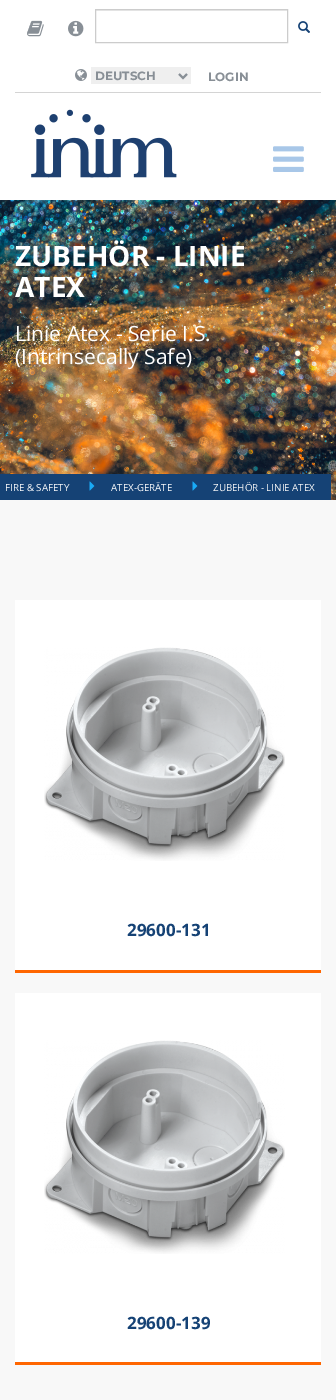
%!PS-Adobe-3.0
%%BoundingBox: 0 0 336 1400
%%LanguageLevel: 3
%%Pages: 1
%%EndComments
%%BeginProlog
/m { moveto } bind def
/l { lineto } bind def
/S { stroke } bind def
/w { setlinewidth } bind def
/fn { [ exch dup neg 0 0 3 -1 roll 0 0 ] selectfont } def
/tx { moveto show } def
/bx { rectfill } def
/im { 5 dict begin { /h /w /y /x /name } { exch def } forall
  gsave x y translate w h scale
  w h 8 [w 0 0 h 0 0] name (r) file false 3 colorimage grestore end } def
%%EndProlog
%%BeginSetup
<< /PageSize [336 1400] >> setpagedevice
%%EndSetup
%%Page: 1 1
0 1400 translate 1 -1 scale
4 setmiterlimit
1 setgray
0 0 336 1400 bx
0.831 setgray
15 92 306 1 bx
(image0.raw) 27 20 17 17 im
(image1.raw) 68 20 16 17 im
0.925 setgray
96 10 191 1 bx
0.8 setgray
95.5 9.5 192 33 rectstroke
(image2.raw) 298 21 12 12 im
(image3.raw) 75 69 12 12 im
0.937 setgray
91 67 100 17 bx
0.533 0.561 0.588 setrgbcolor
2 w
179 74 m 183 78 l 187 74 l S
/Montserrat-Bold 12 fn
(DEUTSCH) 95 80 tx
(LOGIN) 208 81 tx
(image4.raw) 31 109 146 69 im
(image5.raw) 273 146 31 26 im
(image6.raw) 0 200 336 300 im
/OpenSans-Bold 28 fn
1 setgray
(ZUBEHÖR - LINIE) 15 266 tx
(ATEX) 15 297 tx
/OpenSans-Regular 21 fn
(Linie Atex - Serie I.S.) 15 341 tx
(\(Intrinsecally Safe\)) 15 364 tx
0.082 0.259 0.459 setrgbcolor
0 474 331 26 bx
/OpenSans-Regular 9.75 fn
1 setgray
(FIRE & SAFETY) 5 491 tx
(image7.raw) 89 481 6 10 im
(ATEX-GERÄTE) 111 491 tx
(image7.raw) 192 481 6 10 im
0.973 setgray
(ZUBEHÖR - LINIE ATEX) 213 491 tx
0 500 336 900 bx
1 setgray
15 600 306 370 bx
1 0.4 0 setrgbcolor
15 970 306 3 bx
(image8.raw) 44 647 241 214 im
/OpenSans-Bold 17 fn
0.082 0.259 0.459 setrgbcolor
(29600-131) 127 936 tx
1 setgray
15 993 306 369 bx
1 0.4 0 setrgbcolor
15 1362 306 3 bx
(image8.raw) 44 1040 241 214 im
0.082 0.259 0.459 setrgbcolor
(29600-139) 127 1329 tx
showpage
%%EOF
